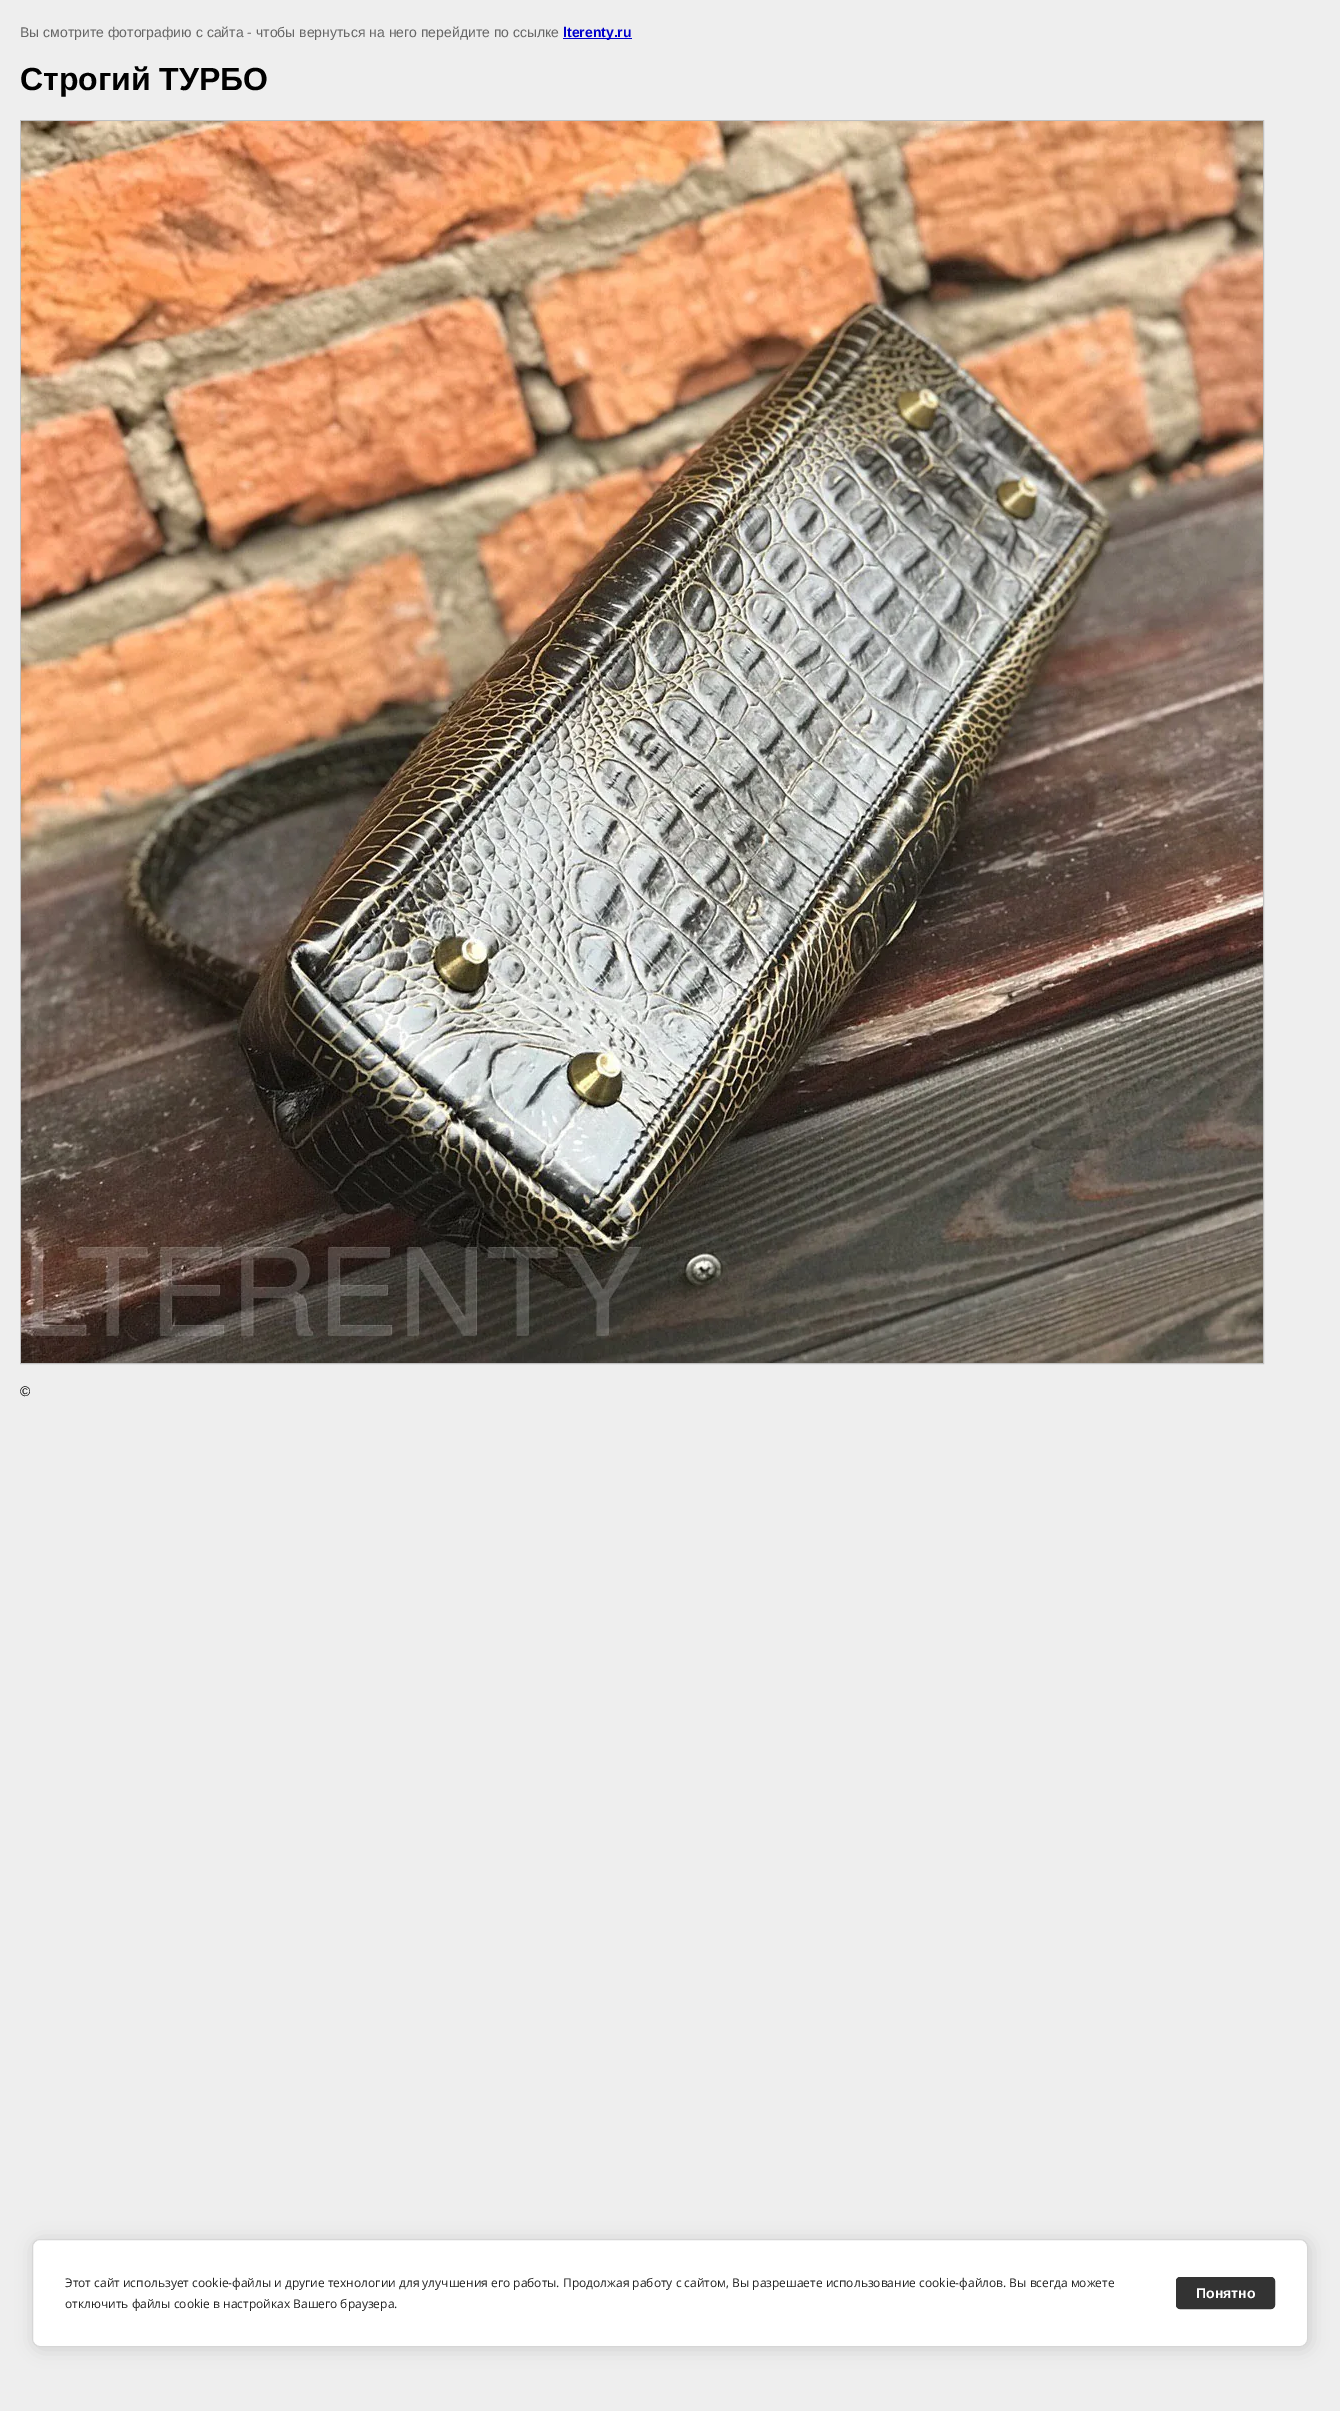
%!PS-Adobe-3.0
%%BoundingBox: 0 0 1340 2411
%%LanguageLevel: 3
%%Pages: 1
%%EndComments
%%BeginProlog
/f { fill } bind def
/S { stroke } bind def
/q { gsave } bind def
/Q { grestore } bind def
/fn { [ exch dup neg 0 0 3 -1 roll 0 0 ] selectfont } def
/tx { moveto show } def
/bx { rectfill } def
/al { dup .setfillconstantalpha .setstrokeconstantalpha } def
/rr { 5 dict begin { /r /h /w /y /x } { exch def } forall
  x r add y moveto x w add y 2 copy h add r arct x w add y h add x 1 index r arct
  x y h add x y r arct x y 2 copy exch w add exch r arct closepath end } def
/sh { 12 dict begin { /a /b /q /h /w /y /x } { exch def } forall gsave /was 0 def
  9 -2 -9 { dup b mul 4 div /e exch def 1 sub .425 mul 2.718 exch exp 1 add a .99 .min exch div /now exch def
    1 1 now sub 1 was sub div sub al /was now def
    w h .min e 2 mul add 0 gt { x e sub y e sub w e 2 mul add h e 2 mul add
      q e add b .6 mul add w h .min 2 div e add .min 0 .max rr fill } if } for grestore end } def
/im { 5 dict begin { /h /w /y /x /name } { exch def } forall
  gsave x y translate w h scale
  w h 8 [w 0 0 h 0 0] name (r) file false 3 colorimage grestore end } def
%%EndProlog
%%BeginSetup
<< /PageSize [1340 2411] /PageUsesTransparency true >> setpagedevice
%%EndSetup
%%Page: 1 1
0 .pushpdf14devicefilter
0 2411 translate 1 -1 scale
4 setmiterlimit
0.933 setgray
0 0 1340 2411 bx
/LiberationSans-Regular 14 fn
0.4 setgray
(Вы смотрите фотографию с сайта - чтобы вернуться на него перейдите по ссылке) 20 37 tx
0 0 0.8 setrgbcolor
563 38 69 1 bx
/LiberationSans-Bold 14 fn
(lterenty.ru) 563 37 tx
/LiberationSans-Bold 32 fn
0 setgray
(Строгий ТУРБО) 20 90 tx
0.753 setgray
20.5 120.5 1243 1243 rectstroke
(image0.raw) 21 121 1242 1242 im
/LiberationSans-Regular 14 fn
0 setgray
(©) 20 1396 tx
34 2241 1276 108 8 9 0.14 sh
1 setgray
32.5 2239.5 1275 107 7.5 rr q f Q
0.839 setgray
S
/OpenSans-Regular 12 fn
0.129 setgray
(Этот сайт использует cookie-файлы и другие технологии для улучшения его работы. Продолжая работу с сайтом, Вы разрешаете использование cookie-файлов. Вы всегда можете) 65 2287 tx
(отключить файлы cookie в настройках Вашего браузера.) 65 2308 tx
0.2 setgray
1176.5 2277.5 98 31 3.5 rr q f Q
S
/LiberationSans-Bold 14 fn
1 setgray
(Понятно) 1196 2298 tx
.poppdf14devicefilter showpage
%%EOF
